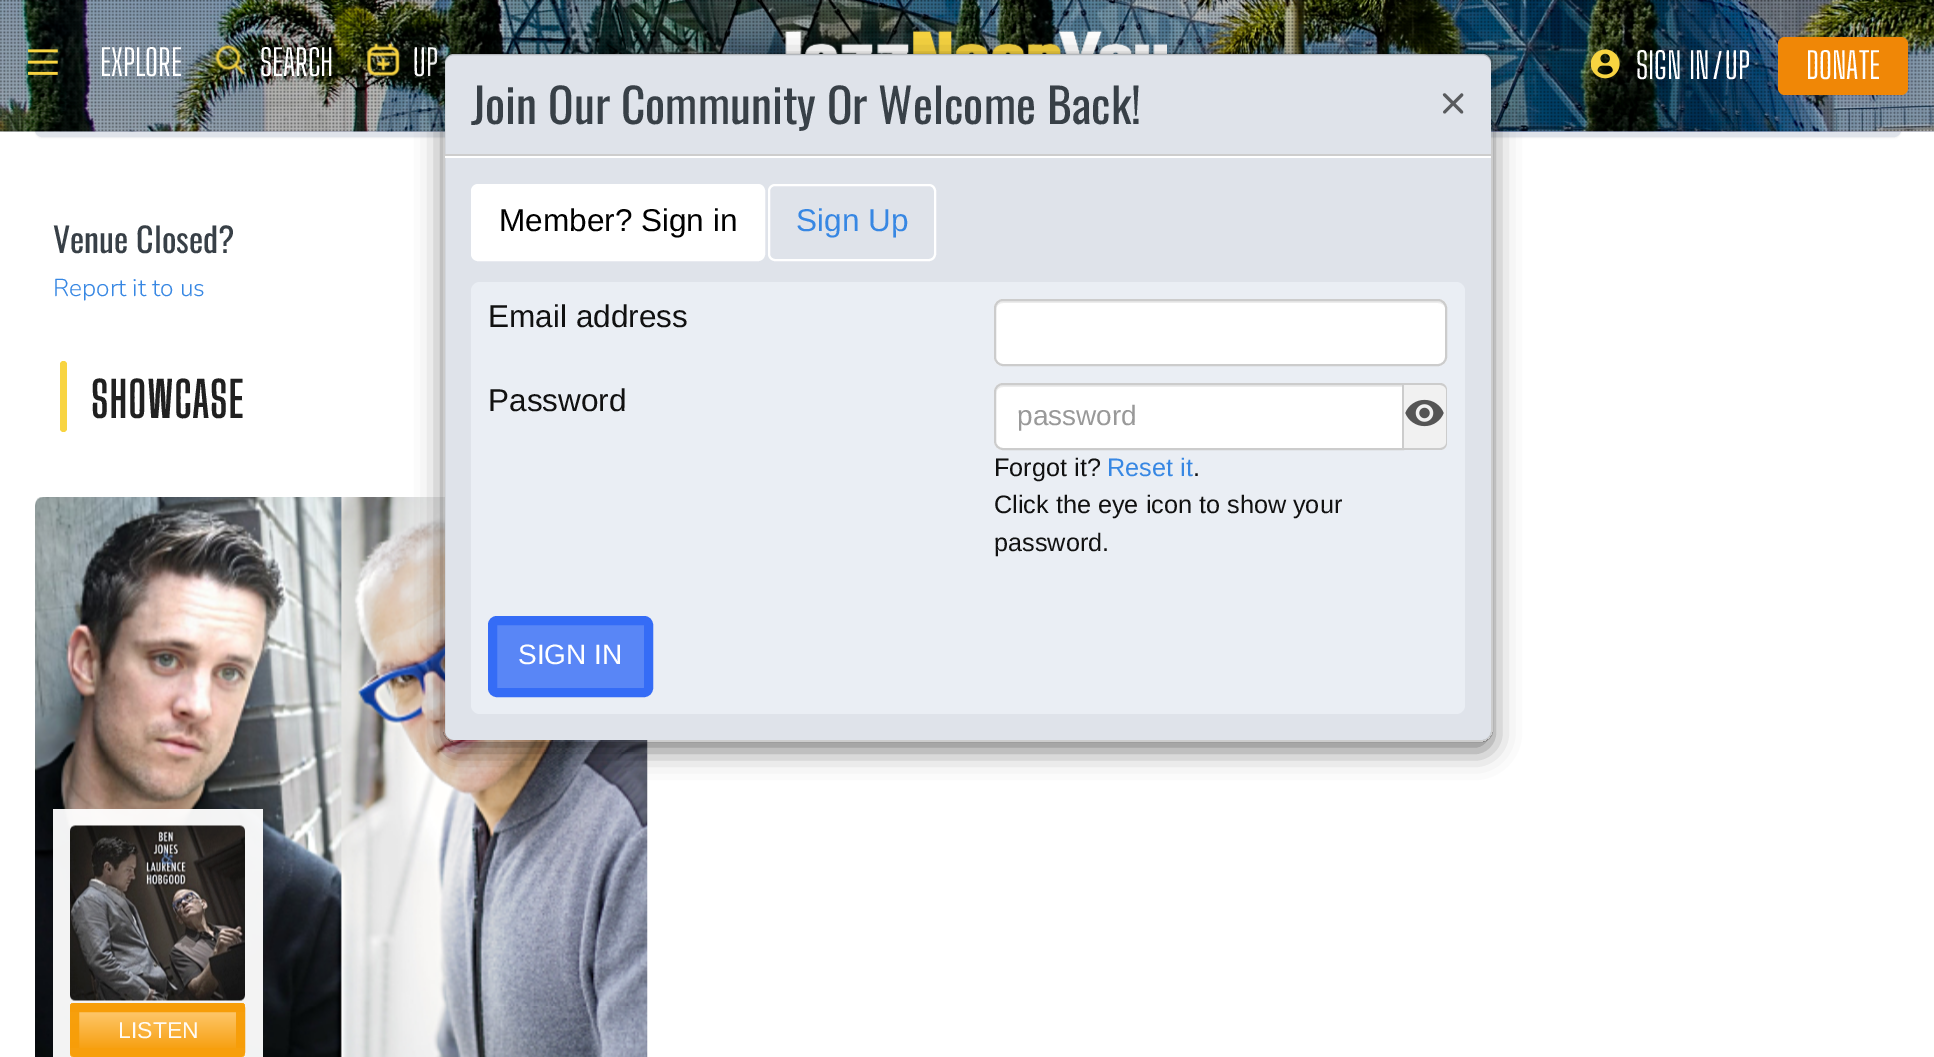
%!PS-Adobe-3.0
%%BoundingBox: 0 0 1934 1057
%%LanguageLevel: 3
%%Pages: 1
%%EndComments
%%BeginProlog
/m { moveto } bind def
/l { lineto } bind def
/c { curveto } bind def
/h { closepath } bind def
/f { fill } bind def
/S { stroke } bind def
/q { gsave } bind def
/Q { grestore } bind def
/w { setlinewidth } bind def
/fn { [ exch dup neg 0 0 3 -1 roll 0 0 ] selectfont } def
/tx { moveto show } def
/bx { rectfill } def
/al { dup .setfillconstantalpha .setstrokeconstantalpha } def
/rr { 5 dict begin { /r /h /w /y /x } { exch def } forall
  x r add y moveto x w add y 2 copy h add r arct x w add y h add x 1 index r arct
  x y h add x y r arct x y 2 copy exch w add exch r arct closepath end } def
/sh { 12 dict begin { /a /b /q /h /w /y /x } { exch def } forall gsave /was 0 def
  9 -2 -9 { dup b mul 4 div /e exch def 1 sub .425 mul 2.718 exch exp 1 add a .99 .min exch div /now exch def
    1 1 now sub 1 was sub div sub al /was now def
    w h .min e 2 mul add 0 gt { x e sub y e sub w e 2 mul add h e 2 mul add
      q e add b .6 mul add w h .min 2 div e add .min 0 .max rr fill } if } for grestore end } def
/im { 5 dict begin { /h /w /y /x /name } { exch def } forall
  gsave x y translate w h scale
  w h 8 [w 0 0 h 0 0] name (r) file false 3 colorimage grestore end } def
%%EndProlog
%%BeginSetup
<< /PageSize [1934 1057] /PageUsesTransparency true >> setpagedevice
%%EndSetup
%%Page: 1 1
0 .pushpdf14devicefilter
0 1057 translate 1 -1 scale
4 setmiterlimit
1 setgray
0 0 1934 1057 bx
0 setgray
35 51 1866 87 7 1 0.05 sh
0.875 0.89 0.918 setrgbcolor
2 w
36 50 1864 86 6 rr S
37 131 1862 4 bx
(image0.raw) 0 0 1934 132 im
(image1.raw) 0 0 1934 132 im
(image2.raw) 785 30 382 24 im
(image3.raw) 28 49 30 26 im
/BigShouldersDisplay-Thin 36 fn
1 setgray
(EXPLORE) 100 76 tx
(image4.raw) 215 44 31 31 im
(SEARCH) 260 76 tx
(image5.raw) 367 43 33 33 im
(UP) 413 76 tx
(image6.raw) 1591 49 29 30 im
(SIGN IN) 1636 79 tx
(UP) 1725 79 tx
1713.5 79 m 1719.5 51 l 1721.5 51 l 1716 79 l h f
0.533 0.565 0.761 setrgbcolor
1778 40 130 58 7 3.5 0.2 sh
0.145 0.173 0.38 setrgbcolor
1778 46 130 57 7 13 0.15 sh
0.941 0.529 0.024 setrgbcolor
1778 37 130 58 7 rr f
1 setgray
(DONATE) 1806 79 tx
/Oswald-Regular 34 fn
0.22 0.251 0.278 setrgbcolor
(Venue Closed?) 53 253 tx
/Nunito-ExtraLight 24.5 fn
0.216 0.529 0.89 setrgbcolor
(Report it to us) 53 296 tx
0.973 0.831 0.255 setrgbcolor
60 361 7 71 3.5 rr f
/BigShouldersDisplay-Bold 47.5 fn
0.125 setgray
91 418 m 1.75 0 (SHOWCASE) ashow
(image7.raw) 35 497 613 560 im
0.95 al
1 setgray
53 809 210 248 bx
1 al
(image8.raw) 70 825 175 176 im
q 75 1003 m 240 1003 l 243 1003 245 1005 245 1008 c 245 1012 l 70 1012 l 70 1008 l 70 1005 72 1003 75 1003 c h clip newpath
<< /ShadingType 2 /ColorSpace /DeviceRGB /Coords [158 975 158 1012] /Extend [true true] /Function << /FunctionType 2 /Domain [0 1] /C0 [0.996 0.776 0.412] /C1 [0.969 0.631 0.075] /N 1 >> >> shfill Q
q 70 1012 m 245 1012 l 245 1048 l 70 1048 l h clip newpath
<< /ShadingType 2 /ColorSpace /DeviceRGB /Coords [158 1012 158 1048] /Extend [true true] /Function << /FunctionType 2 /Domain [0 1] /C0 [0.996 0.776 0.412] /C1 [0.969 0.631 0.075] /N 1 >> >> shfill Q
q 70 1048 m 245 1048 l 245 1052 l 245 1055 243 1057 240 1057 c 75 1057 l 72 1057 70 1055 70 1052 c h clip newpath
<< /ShadingType 2 /ColorSpace /DeviceRGB /Coords [158 1048 158 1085] /Extend [true true] /Function << /FunctionType 2 /Domain [0 1] /C0 [0.996 0.776 0.412] /C1 [0.969 0.631 0.075] /N 1 >> >> shfill Q
0.95 al
0.969 0.616 0.027 setrgbcolor
9 w
74.5 1007.5 166 45 0.5 rr S
/LiberationSans-Regular 23 fn
1 al
1 0.984 0.961 setrgbcolor
(LISTEN) 118 1038 tx
q
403 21 m 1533 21 l 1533 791 l 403 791 l h 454 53 m 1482 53 l 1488 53 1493 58 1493 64 c 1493 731 l 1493 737 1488 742 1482 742 c 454 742 l 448 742 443 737 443 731 c 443 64 l 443 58 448 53 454 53 c h eoclip newpath
0 setgray
443 61 1050 690 11 13 0.5 sh
Q
0.875 0.89 0.918 setrgbcolor
445 54 1046 686 9 rr f
0.2 al
0 setgray
2 w
444 54 1048 687 10 rr S
1 al
0.804 setgray
445 154 1046 2 bx
/Oswald-Regular 47.5 fn
0.22 0.251 0.278 setrgbcolor
(Join Our Community Or Welcome Back!) 471 124 tx
/Nunito-Bold 42 fn
0.349 0.357 0.369 setrgbcolor
(×) 1440 116 tx
1 setgray
445 156 1046 2 bx
472 185 292 75 6 rr q f Q
S
/LiberationSans-Regular 31.5 fn
0 setgray
(Member? Sign in) 499 231 tx
1 setgray
769 185 166 75 6 rr S
0.216 0.529 0.89 setrgbcolor
(Sign Up) 796 231 tx
0.918 0.933 0.957 setrgbcolor
471 282 994 432 9 rr f
0.067 setgray
(Email address) 488 327 tx
1 setgray
994 299 453 67 9 rr f
0.925 setgray
1003 303 m 1438 303 l 1442 303 1446 306 1446 310 c 1446 308 l 1446 304 1443 301 1439 301 c 1003 301 l 999 301 996 304 996 308 c 996 310 l 996 306 999 303 1003 303 c h f
0.8 setgray
995 300 451 65 8 rr S
0.067 setgray
(Password) 488 411 tx
1 setgray
1003 383 m 1404 383 l 1404 450 l 1003 450 l 998 450 994 446 994 441 c 994 392 l 994 387 998 383 1003 383 c h f
0.925 setgray
1003 387 m 1402 387 l 1402 385 l 1003 385 l 998 385 996 390 996 394 c 996 390 999 387 1003 387 c h f
0.8 setgray
1003 384 m 1403 384 l 1403 449 l 1003 449 l 998.5 449 995 445.5 995 441 c 995 392 l 995 387.5 998.5 384 1003 384 c h S
/LiberationSans-Regular 28 fn
0.6 setgray
(password) 1017 425 tx
0.945 setgray
1404 383 m 1440 383 l 1444 383 1447 386 1447 390 c 1447 443 l 1447 447 1444 450 1440 450 c 1404 450 l h f
0.8 setgray
1404 383 m 1440 383 l 1444 383 1447 386 1447 390 c 1447 443 l 1447 447 1444 450 1440 450 c 1404 450 l h 1404 385 m 1440 385 l 1443 385 1446 387 1446 390 c 1446 443 l 1446 446 1443 448 1440 448 c 1404 448 l h eofill
(image9.raw) 1405 399 39 28 im
/LiberationSans-Regular 25.25 fn
0.067 setgray
(Forgot it?) 994 476 tx
0.216 0.529 0.89 setrgbcolor
(Reset it) 1107 476 tx
0.067 setgray
(.) 1193 476 tx
(Click the eye icon to show your) 994 513 tx
(password.) 994 551 tx
0.349 0.525 0.965 setrgbcolor
492.5 620.5 156 72 4.5 rr q f Q
0.208 0.424 0.965 setrgbcolor
9 w
S
/LiberationSans-Regular 28 fn
1 setgray
(SIGN IN) 518 664 tx
.poppdf14devicefilter showpage
%%EOF
